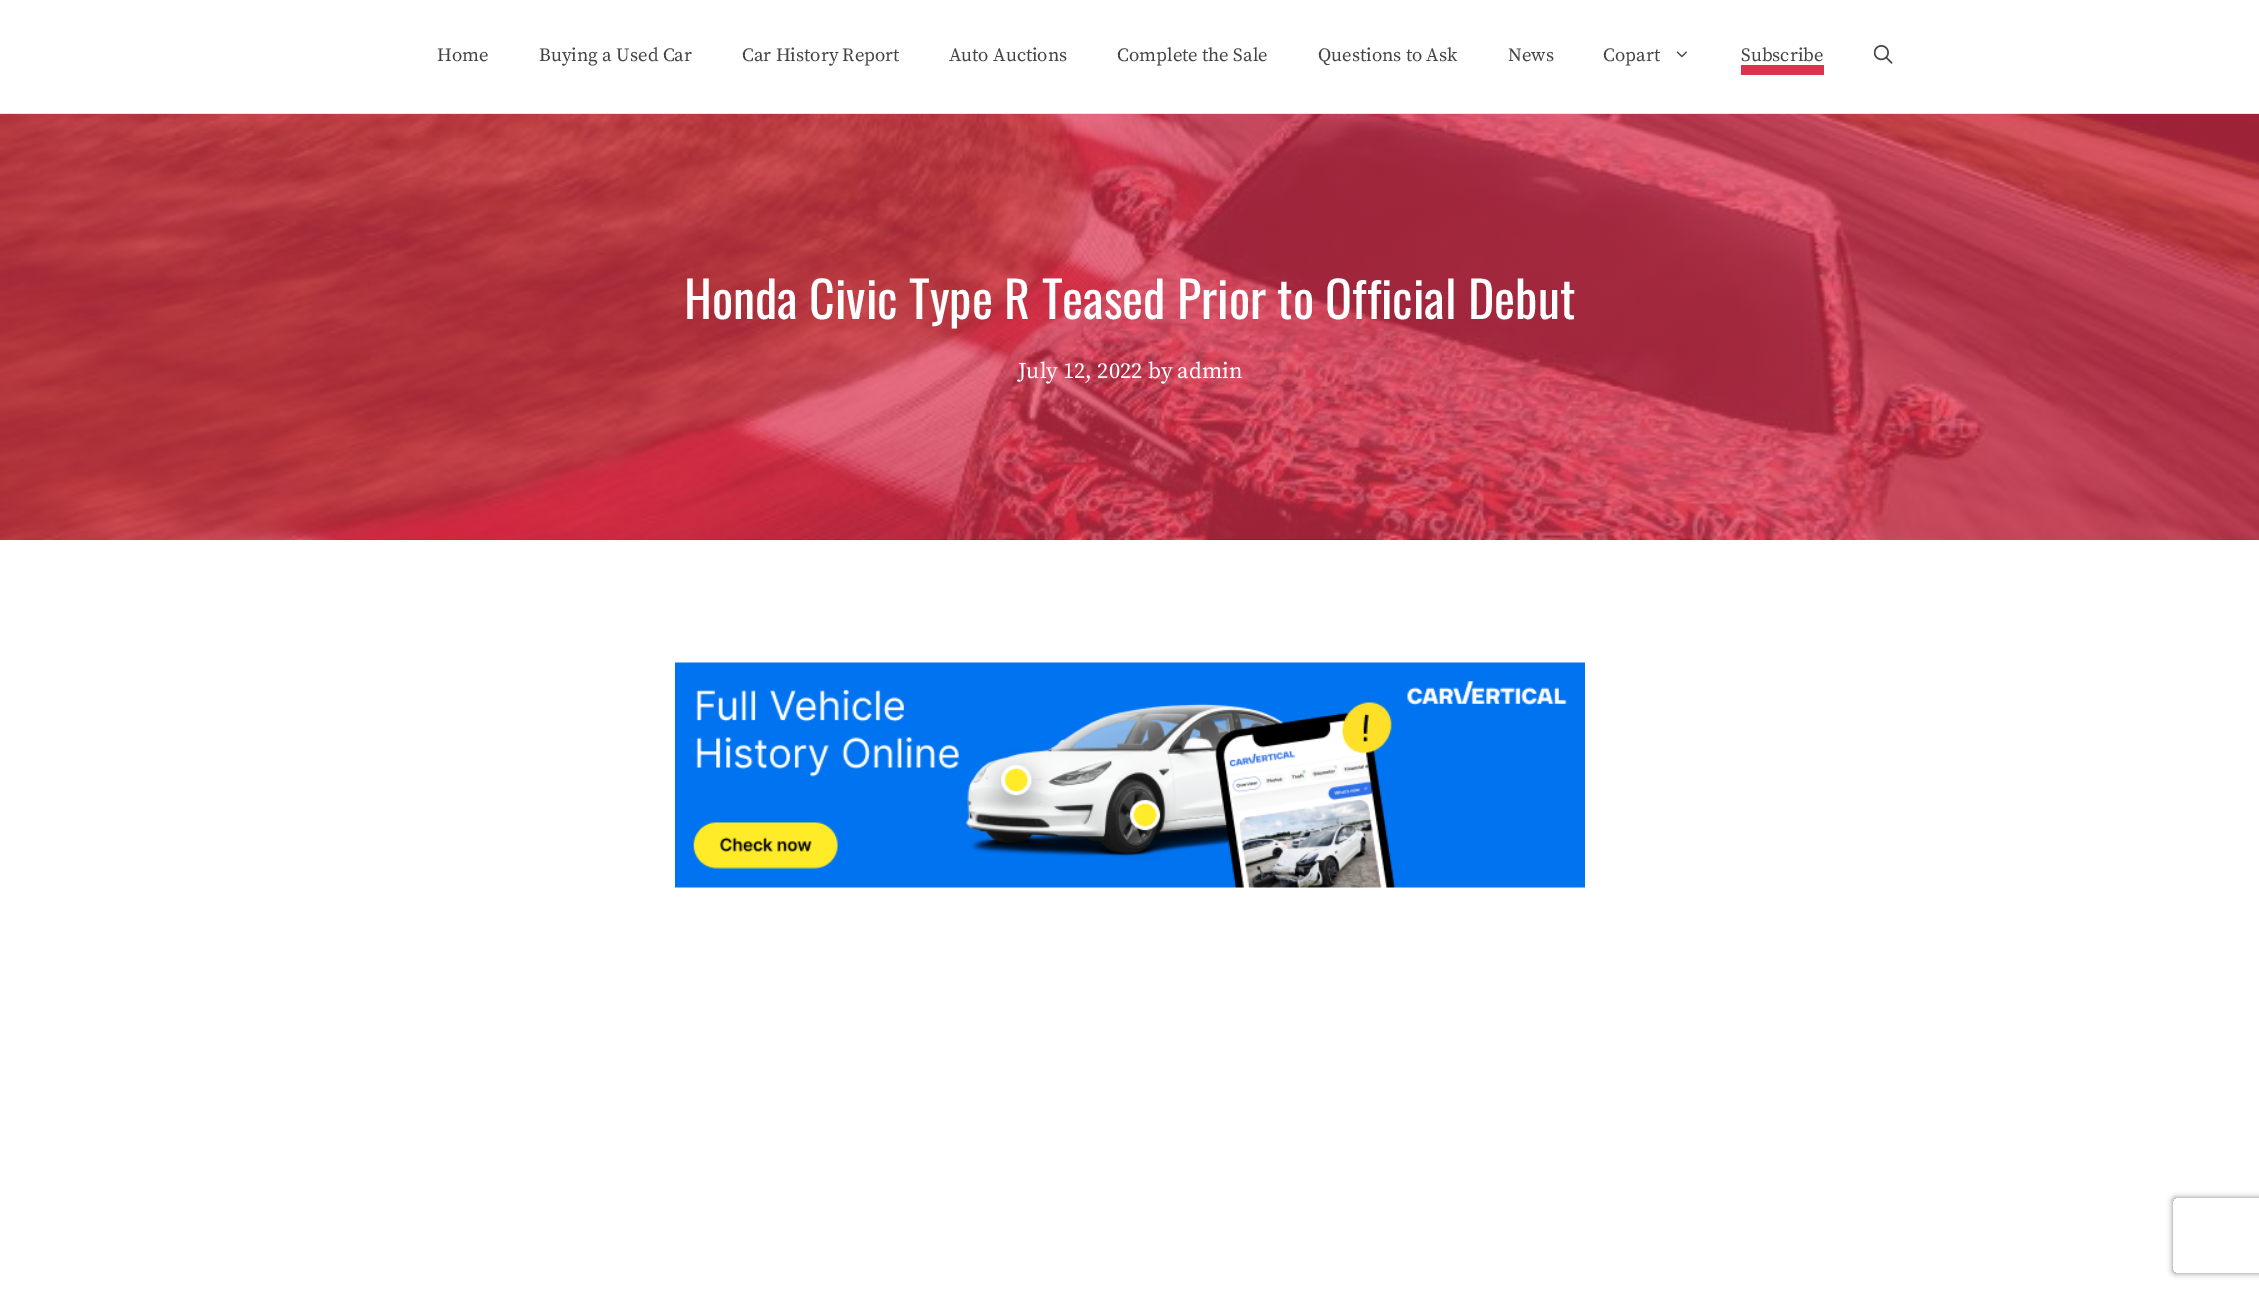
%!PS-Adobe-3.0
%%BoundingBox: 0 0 2259 1289
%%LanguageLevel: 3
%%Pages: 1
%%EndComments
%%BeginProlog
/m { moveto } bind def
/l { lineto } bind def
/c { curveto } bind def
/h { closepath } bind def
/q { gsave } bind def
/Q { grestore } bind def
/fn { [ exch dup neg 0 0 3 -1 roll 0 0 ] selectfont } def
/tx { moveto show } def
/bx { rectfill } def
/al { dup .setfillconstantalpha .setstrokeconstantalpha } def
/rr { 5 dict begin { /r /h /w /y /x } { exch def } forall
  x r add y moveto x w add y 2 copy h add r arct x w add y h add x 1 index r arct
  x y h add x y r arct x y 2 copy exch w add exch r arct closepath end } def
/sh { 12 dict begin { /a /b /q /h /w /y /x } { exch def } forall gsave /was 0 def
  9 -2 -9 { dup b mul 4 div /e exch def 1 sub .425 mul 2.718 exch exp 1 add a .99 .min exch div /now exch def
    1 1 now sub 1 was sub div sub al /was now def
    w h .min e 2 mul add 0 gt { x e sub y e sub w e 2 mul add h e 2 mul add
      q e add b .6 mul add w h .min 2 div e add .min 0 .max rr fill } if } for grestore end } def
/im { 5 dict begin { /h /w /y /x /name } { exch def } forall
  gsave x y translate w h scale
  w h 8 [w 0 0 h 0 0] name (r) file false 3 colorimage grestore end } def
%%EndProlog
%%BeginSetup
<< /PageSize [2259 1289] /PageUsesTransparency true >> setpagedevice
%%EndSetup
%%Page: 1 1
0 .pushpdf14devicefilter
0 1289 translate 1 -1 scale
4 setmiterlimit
1 setgray
0 0 2259 1289 bx
0.902 setgray
0 113 2259 1 bx
/SourceSerifPro-Regular 18.75 fn
0.267 setgray
(Home) 437 61 tx
(Buying a Used Car) 539 61 tx
(Car History Report) 742 61 tx
(Auto Auctions) 949 61 tx
(Complete the Sale) 1117 61 tx
(Questions to Ask) 1318 61 tx
(News) 1508 61 tx
(Copart) 1603 61 tx
(image0.raw) 1676 51 11 7 im
0.878 0.192 0.31 setrgbcolor
1741 65 83 10 bx
0.267 setgray
(Subscribe) 1741 61 tx
(image1.raw) 1874 45 19 19 im
(image2.raw) 0 114 2259 426 im
/Oswald-Regular 50 fn
1 setgray
(Honda Civic Type R Teased Prior to Official Debut) 684 319 tx
/SourceSerifPro-Regular 22.5 fn
(July 12, 2022 by admin) 1018 378 tx
(image3.raw) 675 662 910 226 im
q
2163 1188 m 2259 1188 l 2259 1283 l 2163 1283 l h 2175.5 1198 m 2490.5 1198 l 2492 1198 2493 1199 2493 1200.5 c 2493 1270.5 l 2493 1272 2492 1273 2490.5 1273 c 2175.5 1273 l 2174 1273 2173 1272 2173 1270.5 c 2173 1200.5 l 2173 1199 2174 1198 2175.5 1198 c h eoclip newpath
0.502 setgray
2173 1198 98 75 2.5 3 1 sh
Q
.poppdf14devicefilter showpage
%%EOF
